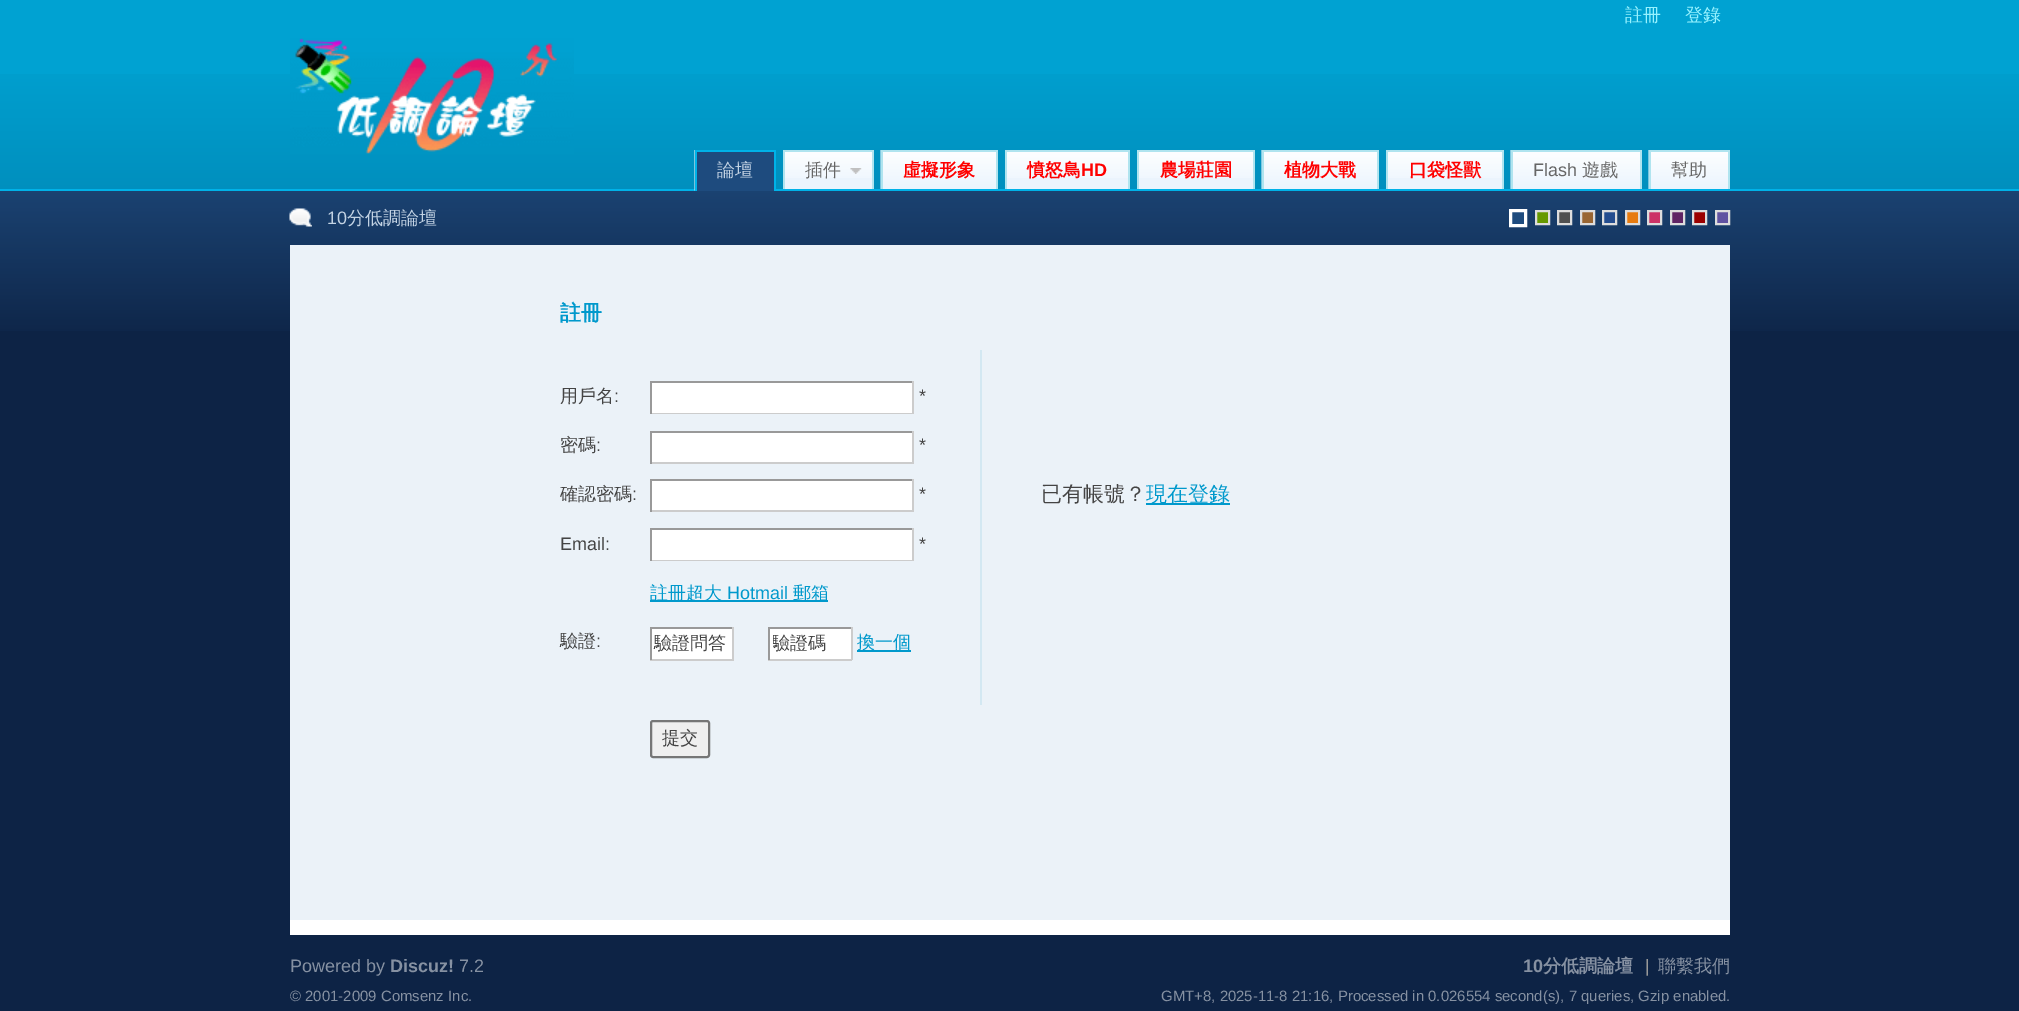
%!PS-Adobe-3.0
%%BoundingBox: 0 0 2019 1011
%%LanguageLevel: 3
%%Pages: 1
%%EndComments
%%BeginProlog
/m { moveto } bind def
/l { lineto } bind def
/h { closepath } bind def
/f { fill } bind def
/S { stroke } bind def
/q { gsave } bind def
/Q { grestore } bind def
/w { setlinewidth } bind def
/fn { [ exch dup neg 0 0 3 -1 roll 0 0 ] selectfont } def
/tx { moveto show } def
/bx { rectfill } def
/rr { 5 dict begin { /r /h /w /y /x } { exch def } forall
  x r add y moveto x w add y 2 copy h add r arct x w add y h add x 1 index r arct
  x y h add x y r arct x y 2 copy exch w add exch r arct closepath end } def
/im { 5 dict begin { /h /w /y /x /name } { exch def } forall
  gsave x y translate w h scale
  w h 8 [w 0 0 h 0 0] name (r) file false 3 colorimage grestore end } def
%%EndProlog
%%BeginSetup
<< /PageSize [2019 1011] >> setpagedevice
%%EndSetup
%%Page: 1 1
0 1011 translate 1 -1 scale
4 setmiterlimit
0.051 0.137 0.271 setrgbcolor
0 0 2019 1011 bx
(image0.raw) 0 191 2019 140 im
0 0.635 0.824 setrgbcolor
0 0 2019 74 bx
(image1.raw) 0 74 2019 115 im
0 0.698 0.91 setrgbcolor
0 189 2019 2 bx
/WenQuanYiZenHei-Medium 18 fn
0.592 0.949 1 setrgbcolor
(註冊) 1625 21 tx
(登錄) 1685 21 tx
(image2.raw) 290 38 284 116 im
(image3.raw) 694 150 1 41 im
0.118 0.294 0.494 setrgbcolor
697 152 77 39 bx
0 0.698 0.91 setrgbcolor
695 150 81 2 bx
774 150 2 41 bx
695 150 2 41 bx
0.765 0.827 0.894 setrgbcolor
(論壇) 717 176 tx
0.922 0.957 0.992 setrgbcolor
785 178 87 11 bx
(image4.raw) 785 152 87 26 im
(image5.raw) 850 168 12 6 im
0.69 0.894 0.937 setrgbcolor
783 150 90 2 bx
872 150 2 39 bx
783 150 2 39 bx
0.4 setgray
(插件) 805 176 tx
(image6.raw) 880 150 116 39 im
0.69 0.894 0.937 setrgbcolor
881 150 117 2 bx
996 150 2 39 bx
881 150 2 39 bx
/WenQuanYiZenHei-Bold 18 fn
1 0 0 setrgbcolor
(虛擬形象) 903 176 tx
0.922 0.957 0.992 setrgbcolor
1007 178 121 11 bx
(image7.raw) 1007 152 121 26 im
0.69 0.894 0.937 setrgbcolor
1005 150 125 2 bx
1128 150 2 39 bx
1005 150 2 39 bx
1 0 0 setrgbcolor
(憤怒鳥) 1027 176 tx
/LiberationSans-Bold 18 fn
(HD) 1081 176 tx
0.922 0.957 0.992 setrgbcolor
1139 178 114 11 bx
(image8.raw) 1139 152 114 26 im
0.69 0.894 0.937 setrgbcolor
1137 150 117 2 bx
1253 150 2 39 bx
1137 150 2 39 bx
/WenQuanYiZenHei-Bold 18 fn
1 0 0 setrgbcolor
(農場莊園) 1160 176 tx
(image6.raw) 1261 150 116 39 im
0.69 0.894 0.937 setrgbcolor
1262 150 117 2 bx
1377 150 2 39 bx
1262 150 2 39 bx
1 0 0 setrgbcolor
(植物大戰) 1284 176 tx
0.922 0.957 0.992 setrgbcolor
1388 178 114 11 bx
(image8.raw) 1388 152 114 26 im
0.69 0.894 0.937 setrgbcolor
1386 150 117 2 bx
1502 150 2 39 bx
1386 150 2 39 bx
1 0 0 setrgbcolor
(口袋怪獸) 1409 176 tx
(image9.raw) 1510 150 130 39 im
0.69 0.894 0.937 setrgbcolor
1511 150 130 2 bx
1640 150 2 39 bx
1511 150 2 39 bx
/LiberationSans-Regular 18 fn
0.4 setgray
(Flash) 1533 176 tx
/WenQuanYiZenHei-Medium 18 fn
(遊戲) 1582 176 tx
(image10.raw) 1648 150 80 39 im
0.69 0.894 0.937 setrgbcolor
1649 150 81 2 bx
1728 150 2 39 bx
1649 150 2 39 bx
0.4 setgray
(幫助) 1671 176 tx
0.118 0.294 0.494 setrgbcolor
1510.5 210.5 m 1525.5 210.5 l 1525.5 225.5 l 1510.5 225.5 l h q f Q
1 setgray
3 w
S
0.4 0.6 0 setrgbcolor
1536 211 m 1549 211 l 1549 224 l 1536 224 l h q f Q
0.867 setgray
2 w
S
0.314 setgray
1558 211 m 1571 211 l 1571 224 l 1558 224 l h q f Q
0.867 setgray
S
0.6 0.4 0.2 setrgbcolor
1581 211 m 1594 211 l 1594 224 l 1581 224 l h q f Q
0.867 setgray
S
0.141 0.302 0.561 setrgbcolor
1603 211 m 1616 211 l 1616 224 l 1603 224 l h q f Q
0.867 setgray
S
0.906 0.482 0.059 setrgbcolor
1626 211 m 1639 211 l 1639 224 l 1626 224 l h q f Q
0.867 setgray
S
0.8 0.2 0.4 setrgbcolor
1648 211 m 1661 211 l 1661 224 l 1648 224 l h q f Q
0.867 setgray
S
0.376 0.141 0.392 setrgbcolor
1671 211 m 1684 211 l 1684 224 l 1671 224 l h q f Q
0.867 setgray
S
0.608 0 0 setrgbcolor
1693 211 m 1706 211 l 1706 224 l 1693 224 l h q f Q
0.867 setgray
S
0.376 0.322 0.631 setrgbcolor
1716 211 m 1729 211 l 1729 224 l 1716 224 l h q f Q
0.867 setgray
S
(image11.raw) 289 208 23 19 im
/LiberationSans-Regular 18 fn
0.765 0.827 0.894 setrgbcolor
(10) 327 224 tx
/WenQuanYiZenHei-Medium 18 fn
(分低調論壇) 347 224 tx
1 setgray
290 920 1440 15 bx
0.922 0.949 0.973 setrgbcolor
290 245 1440 675 bx
/WenQuanYiZenHei-Bold 21 fn
0 0.6 0.8 setrgbcolor
(註冊) 560 320 tx
0.827 0.91 0.949 setrgbcolor
980 350 2 355 bx
/WenQuanYiZenHei-Medium 18 fn
0.267 setgray
(用戶名) 560 402 tx
/LiberationSans-Regular 18 fn
(:) 614 402 tx
1 setgray
652 383 260 30 bx
0.6 setgray
650 381 264 2 bx
0.8 setgray
912 381 2 33 bx
650 413 264 1 bx
0.6 setgray
650 381 2 33 bx
0.267 setgray
(*) 919 402 tx
/WenQuanYiZenHei-Medium 18 fn
(密碼) 560 451 tx
/LiberationSans-Regular 18 fn
(:) 596 451 tx
1 setgray
652 433 260 29 bx
0.6 setgray
650 431 264 2 bx
0.8 setgray
912 431 2 33 bx
650 462 264 2 bx
0.6 setgray
650 431 2 33 bx
0.267 setgray
(*) 919 451 tx
/WenQuanYiZenHei-Medium 18 fn
(確認密碼) 560 500 tx
/LiberationSans-Regular 18 fn
(:) 632 500 tx
1 setgray
652 481 260 29 bx
0.6 setgray
650 479 264 2 bx
0.8 setgray
912 479 2 33 bx
650 510 264 2 bx
0.6 setgray
650 479 2 33 bx
0.267 setgray
(*) 919 500 tx
(Email:) 560 550 tx
1 setgray
652 530 260 30 bx
0.6 setgray
650 528 264 2 bx
0.8 setgray
912 528 2 33 bx
650 560 264 1 bx
0.6 setgray
650 528 2 33 bx
0.267 setgray
(*) 919 550 tx
0 0.6 0.8 setrgbcolor
650 600 178 2 bx
/WenQuanYiZenHei-Medium 18 fn
(註冊超大) 650 599 tx
/LiberationSans-Regular 18 fn
(Hotmail) 727 599 tx
/WenQuanYiZenHei-Medium 18 fn
(郵箱) 793 599 tx
0.267 setgray
(驗證) 560 647 tx
/LiberationSans-Regular 18 fn
(:) 596 647 tx
1 setgray
652 629 80 30 bx
0.6 setgray
650 627 84 2 bx
0.8 setgray
732 627 2 33 bx
650 659 84 2 bx
0.6 setgray
650 627 2 33 bx
/WenQuanYiZenHei-Medium 18 fn
0.267 setgray
(驗證問答) 654 649 tx
1 setgray
770 629 81 30 bx
0.6 setgray
768 627 84 2 bx
0.8 setgray
851 627 2 33 bx
768 659 84 2 bx
0.6 setgray
768 627 2 33 bx
q
773 630 75 29 rectclip
0.267 setgray
(驗證碼) 772 649 tx
Q
0 0.6 0.8 setrgbcolor
857 650 54 2 bx
(換一個) 857 648 tx
/WenQuanYiZenHei-Medium 21 fn
0.267 setgray
(已有帳號？) 1041 501 tx
0 0.6 0.8 setrgbcolor
1146 503 84 2 bx
(現在登錄) 1146 501 tx
0.937 setgray
651 721 58 36 2 rr q f Q
0.463 setgray
S
/WenQuanYiZenHei-Medium 18 fn
0.267 setgray
(提交) 662 744 tx
/LiberationSans-Regular 18 fn
0.525 0.569 0.635 setrgbcolor
(Powered by) 290 972 tx
/LiberationSans-Bold 18 fn
(Discuz!) 390 972 tx
/LiberationSans-Regular 18 fn
(7.2) 459 972 tx
/LiberationSans-Regular 14.95 fn
(© 2001-2009 Comsenz Inc.) 290 1001 tx
/LiberationSans-Bold 18 fn
(10) 1523 972 tx
/WenQuanYiZenHei-Bold 18 fn
(分低調論壇) 1543 972 tx
/LiberationSans-Regular 18 fn
0.6 setgray
(|) 1645 972 tx
/WenQuanYiZenHei-Medium 18 fn
0.525 0.569 0.635 setrgbcolor
(聯繫我們) 1658 972 tx
/LiberationSans-Regular 14.95 fn
(GMT+8, 2025-11-8 21:16, Processed in 0.026554 second\(s\), 7 queries, Gzip enabled.) 1161 1001 tx
showpage
%%EOF
